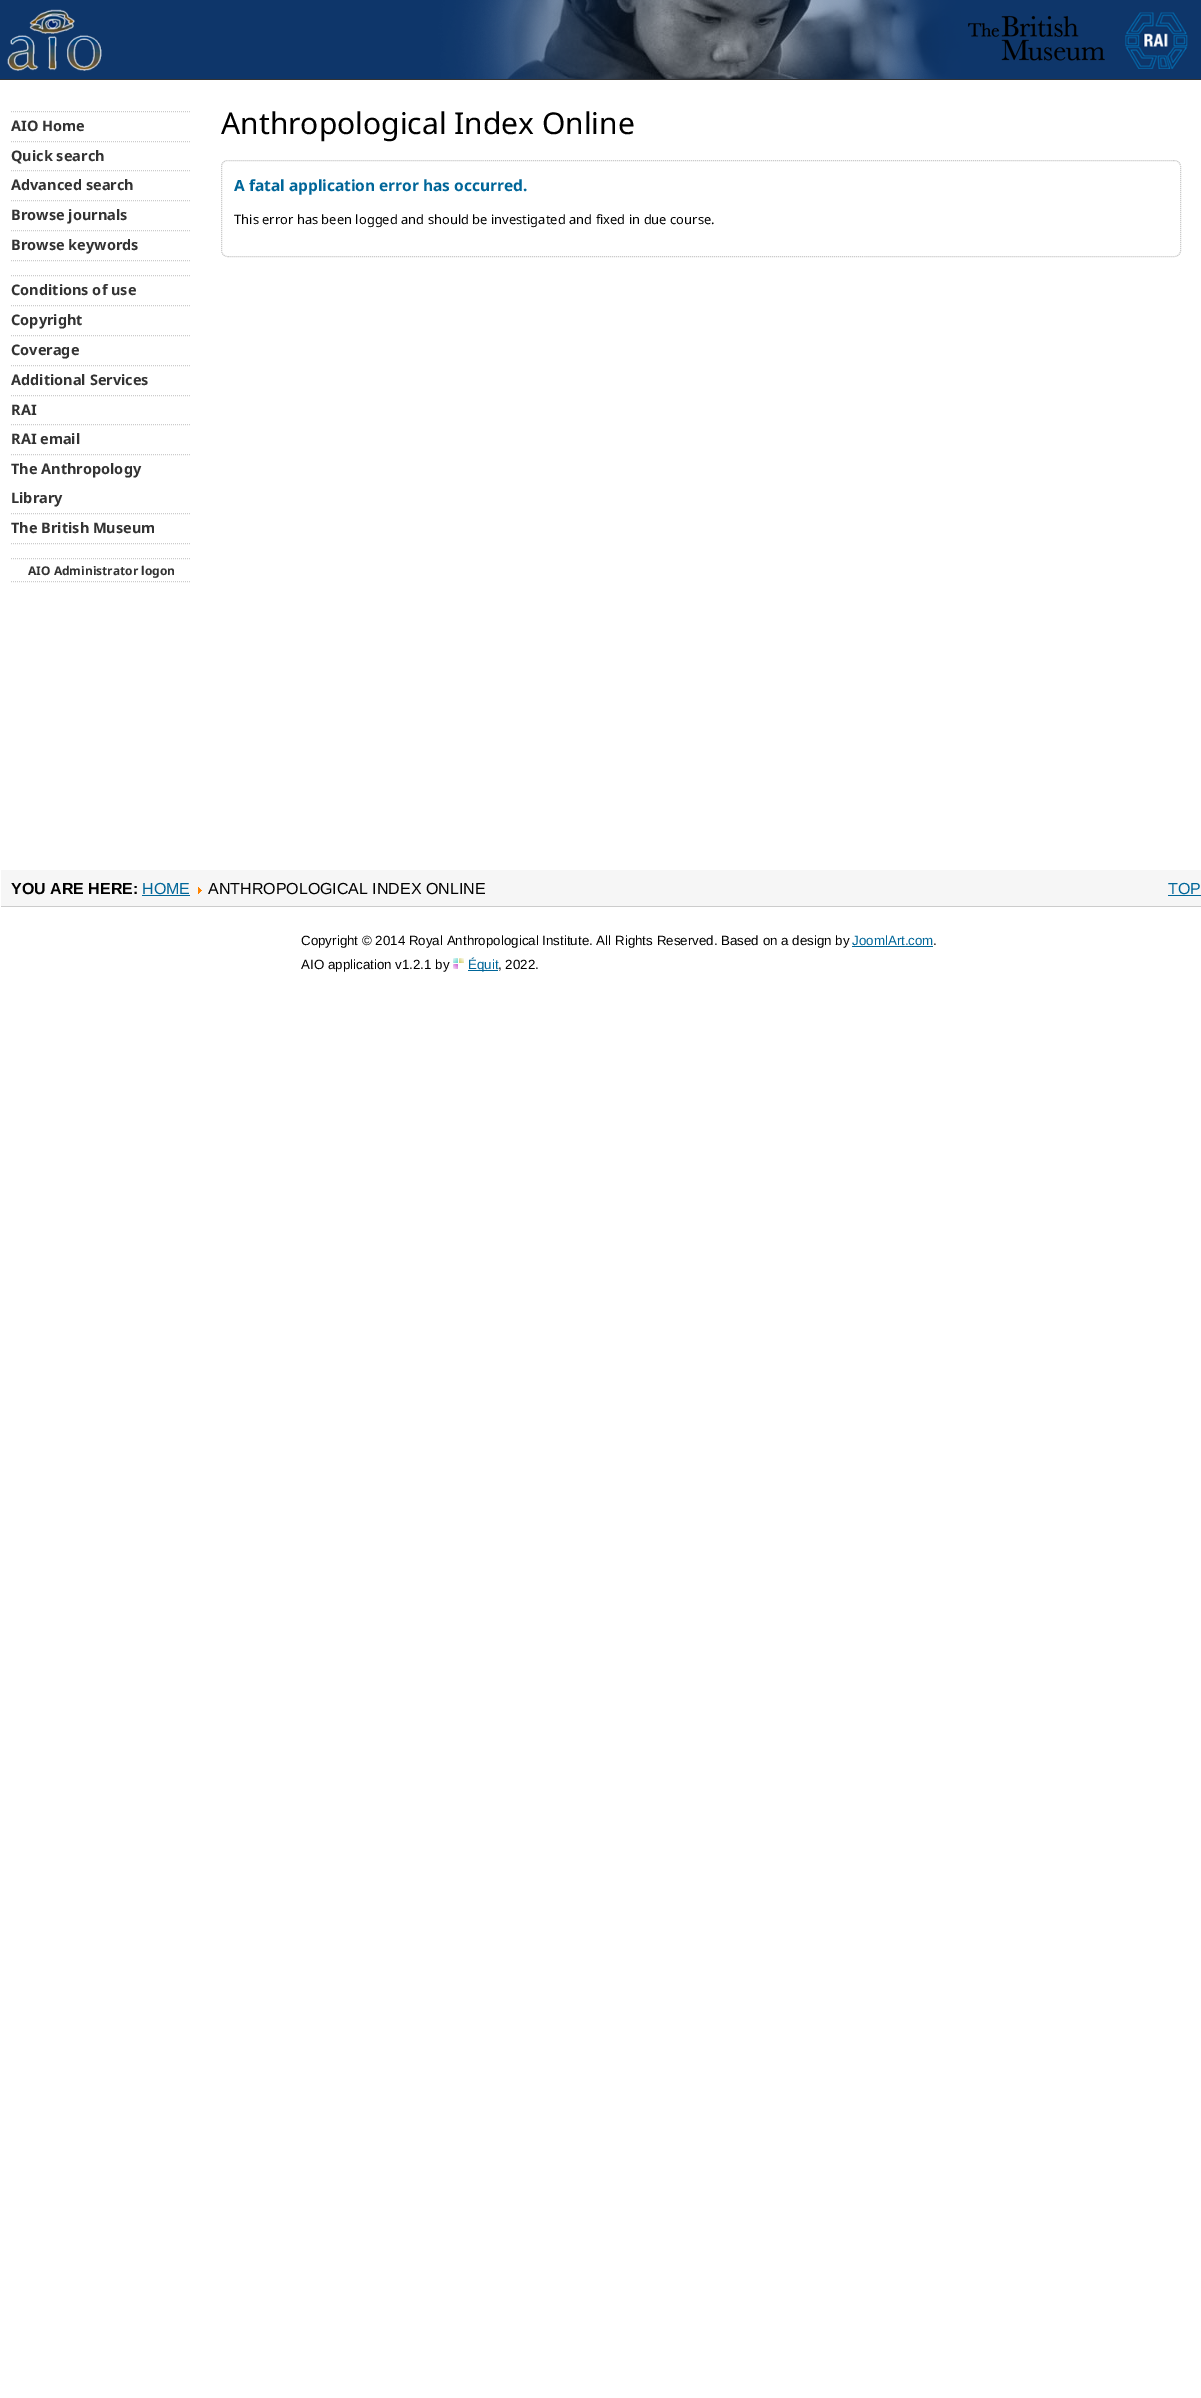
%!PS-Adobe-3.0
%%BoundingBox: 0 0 1201 2398
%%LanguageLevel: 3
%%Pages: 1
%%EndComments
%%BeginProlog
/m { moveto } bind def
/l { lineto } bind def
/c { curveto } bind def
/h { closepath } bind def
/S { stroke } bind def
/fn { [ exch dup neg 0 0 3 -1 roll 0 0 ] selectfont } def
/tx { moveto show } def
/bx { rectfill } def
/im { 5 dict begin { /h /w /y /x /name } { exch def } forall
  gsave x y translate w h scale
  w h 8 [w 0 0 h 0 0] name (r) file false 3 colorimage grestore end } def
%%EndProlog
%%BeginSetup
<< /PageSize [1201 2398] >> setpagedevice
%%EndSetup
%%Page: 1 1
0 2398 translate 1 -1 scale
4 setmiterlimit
1 setgray
0 0 1201 2398 bx
0.055 0.212 0.416 setrgbcolor
0 0 116 79 bx
0.2 setgray
0 79 1201 1 bx
(image0.raw) 443 0 523 79 im
(image1.raw) 109 0 1092 79 im
(image2.raw) 7 9 95 62 im
(image3.raw) 968 15 137 46 im
(image4.raw) 1125 12 63 57 im
0.8 setgray
[1 1] 0 setdash
11 111.5 m 191 111.5 l S
11 141.5 m 191 141.5 l S
/NotoSans-Bold 14.5 fn
0.2 setgray
(AIO Home) 11 131 tx
0.8 setgray
11 170.5 m 191 170.5 l S
0.2 setgray
(Quick search) 11 161 tx
0.8 setgray
11 200.5 m 191 200.5 l S
0.2 setgray
(Advanced search) 11 190 tx
0.8 setgray
11 230.5 m 191 230.5 l S
0.2 setgray
(Browse journals) 11 220 tx
0.8 setgray
11 260.5 m 191 260.5 l S
0.2 setgray
(Browse keywords) 11 250 tx
0.8 setgray
11 275.5 m 191 275.5 l S
11 305.5 m 191 305.5 l S
0.2 setgray
(Conditions of use) 11 295 tx
0.8 setgray
11 335.5 m 191 335.5 l S
0.2 setgray
(Copyright) 11 325 tx
0.8 setgray
11 365.5 m 191 365.5 l S
0.2 setgray
(Coverage) 11 355 tx
0.8 setgray
11 395.5 m 191 395.5 l S
0.2 setgray
(Additional Services) 11 385 tx
0.8 setgray
11 424.5 m 191 424.5 l S
0.2 setgray
(RAI) 11 415 tx
0.8 setgray
11 454.5 m 191 454.5 l S
0.2 setgray
(RAI email) 11 444 tx
0.8 setgray
11 513.5 m 191 513.5 l S
0.2 setgray
(The Anthropology) 11 474 tx
(Library) 11 503 tx
0.8 setgray
11 543.5 m 191 543.5 l S
0.2 setgray
(The British Museum) 11 533 tx
0.8 setgray
11 558.5 m 191 558.5 l S
11 581.5 m 191 581.5 l S
/NotoSans-Bold 12 fn
0.2 setgray
(AIO Administrator logon) 28 575 tx
/NotoSans-Regular 30 fn
0 setgray
(Anthropological Index Online) 221 134 tx
0.8 setgray
227.5 160.5 m 1174.5 160.5 l 1178 160.5 1180.5 163 1180.5 166.5 c 1180.5 250.5 l 1180.5 254 1178 256.5 1174.5 256.5 c 227.5 256.5 l 224 256.5 221.5 254 221.5 250.5 c 221.5 166.5 l 221.5 163 224 160.5 227.5 160.5 c h S
/NotoSans-Bold 15.5 fn
0 0.4 0.6 setrgbcolor
(A fatal application error has occurred.) 234 191 tx
/NotoSans-Regular 12.95 fn
0 setgray
(This error has been logged and should be investigated and fixed in due course.) 234 224 tx
0.965 setgray
1 870 1200 36 bx
0.8 setgray
1 906 1200 1 bx
/LiberationSans-Bold 16 fn
0 setgray
(YOU ARE HERE:) 11 894 tx
/LiberationSans-Regular 16 fn
0 0.4 0.6 setrgbcolor
(HOME) 142 894 tx
142 895 48 1 bx
(image5.raw) 198 887 4 7 im
0 setgray
(ANTHROPOLOGICAL INDEX ONLINE) 208 894 tx
0 0.4 0.6 setrgbcolor
(TOP) 1168 894 tx
1168 895 33 1 bx
/LiberationSans-Regular 13.35 fn
0 setgray
(Copyright © 2014 Royal Anthropological Institute. All Rights Reserved. Based on a design by) 301 945 tx
0 0.4 0.6 setrgbcolor
(JoomlArt.com) 852 945 tx
0 setgray
(.) 933 945 tx
0 0.4 0.6 setrgbcolor
852 946 81 1 bx
0 setgray
(AIO application v1.2.1 by) 301 969 tx
(image6.raw) 453 958 11 11 im
0 0.4 0.6 setrgbcolor
468 970 30 1 bx
(Équit) 468 969 tx
0 setgray
(, 2022.) 498 969 tx
showpage
%%EOF
